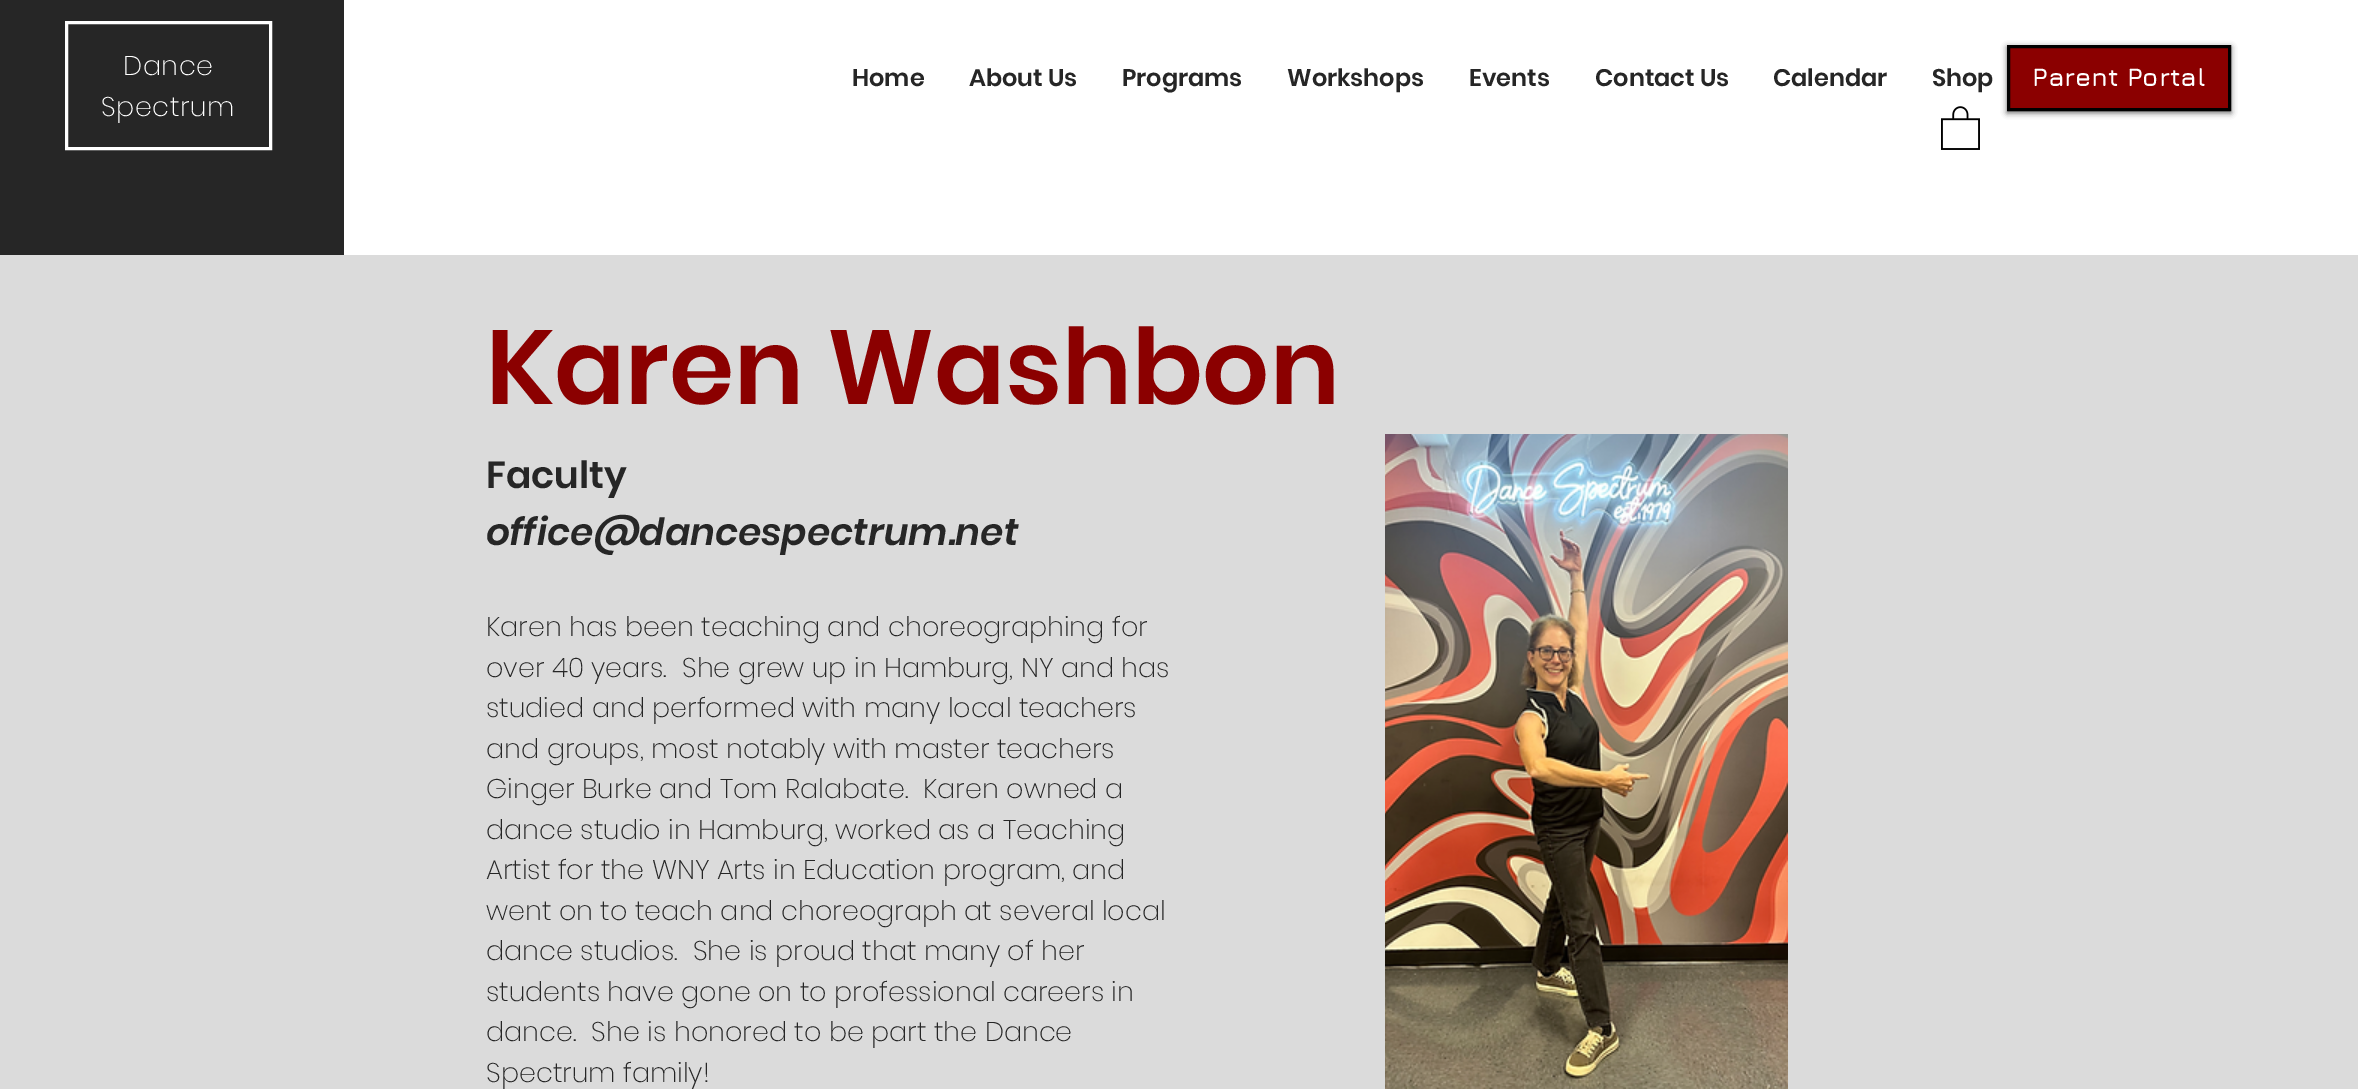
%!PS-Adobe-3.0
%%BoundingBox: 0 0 2358 1089
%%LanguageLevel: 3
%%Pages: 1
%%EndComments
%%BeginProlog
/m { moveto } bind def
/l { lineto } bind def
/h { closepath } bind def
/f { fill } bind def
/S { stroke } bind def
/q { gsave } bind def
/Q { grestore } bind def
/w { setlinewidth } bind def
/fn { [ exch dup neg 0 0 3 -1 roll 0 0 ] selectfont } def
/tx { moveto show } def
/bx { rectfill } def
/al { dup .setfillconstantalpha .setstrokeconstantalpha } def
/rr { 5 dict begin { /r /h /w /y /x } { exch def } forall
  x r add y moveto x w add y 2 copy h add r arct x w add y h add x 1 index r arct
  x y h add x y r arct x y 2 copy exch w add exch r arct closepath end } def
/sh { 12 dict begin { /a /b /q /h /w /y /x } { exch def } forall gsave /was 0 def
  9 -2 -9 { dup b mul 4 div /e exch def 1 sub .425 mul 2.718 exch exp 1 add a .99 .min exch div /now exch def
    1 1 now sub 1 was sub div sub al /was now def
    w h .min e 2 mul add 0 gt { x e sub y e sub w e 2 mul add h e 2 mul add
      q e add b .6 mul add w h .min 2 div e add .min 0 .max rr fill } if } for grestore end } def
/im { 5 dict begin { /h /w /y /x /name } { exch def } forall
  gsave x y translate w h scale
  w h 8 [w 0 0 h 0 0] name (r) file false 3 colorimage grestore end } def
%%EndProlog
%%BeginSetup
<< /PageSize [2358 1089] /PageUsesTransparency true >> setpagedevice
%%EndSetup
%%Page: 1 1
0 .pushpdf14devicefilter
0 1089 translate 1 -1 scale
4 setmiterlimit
0.859 setgray
0 0 2358 1089 bx
1 setgray
344 0 2014 255 bx
0.149 setgray
0 0 344 255 bx
1 setgray
3 w
66.5 22.5 204 126 rectstroke
/Poppins-ExtraLight 27 fn
123 75 m 0.5 0 (Dance) ashow
101 116 m 0.5 0 (Spectrum) ashow
/Poppins-SemiBold 24 fn
0.149 setgray
(Home) 852 86 tx
(About Us) 969 86 tx
(Programs) 1122 86 tx
(Workshops) 1287 86 tx
(Events) 1469 86 tx
(Contact Us) 1595 86 tx
(Calendar) 1773 86 tx
(Shop) 1932 86 tx
0 setgray
2007 47 224 66 0 3 0.6 sh
0.545 0 0 setrgbcolor
2008.5 46.5 m 2229.5 46.5 l 2229.5 109.5 l 2008.5 109.5 l h q f Q
0 setgray
S
/Jura-Bold 25.5 fn
1 setgray
(Parent Portal) 2032 86 tx
(image0.raw) 1941 106 39 44 im
/Poppins-SemiBold 105 fn
0.545 0 0 setrgbcolor
(Karen Washbon) 486 404 tx
/Poppins-SemiBold 37.5 fn
0.149 setgray
(Faculty) 486 488 tx
/Poppins-SemiBoldItalic 37.5 fn
(office@dancespectrum.net) 486 545 tx
(image1.raw) 1385 434 403 655 im
/Poppins-ExtraLight 27 fn
(Karen has been teaching and choreographing for) 486 636 tx
(over 40 years.  She grew up in Hamburg, NY and has) 486 677 tx
(studied and performed with many local teachers) 486 717 tx
(and groups, most notably with master teachers) 486 758 tx
(Ginger Burke and Tom Ralabate.  Karen owned a) 486 798 tx
(dance studio in Hamburg, worked as a Teaching) 486 839 tx
(Artist for the WNY Arts in Education program, and) 486 879 tx
(went on to teach and choreograph at several local) 486 920 tx
(dance studios.  She is proud that many of her) 486 960 tx
(students have gone on to professional careers in) 486 1001 tx
(dance.  She is honored to be part the Dance) 486 1041 tx
(Spectrum family!) 486 1082 tx
.poppdf14devicefilter showpage
%%EOF
